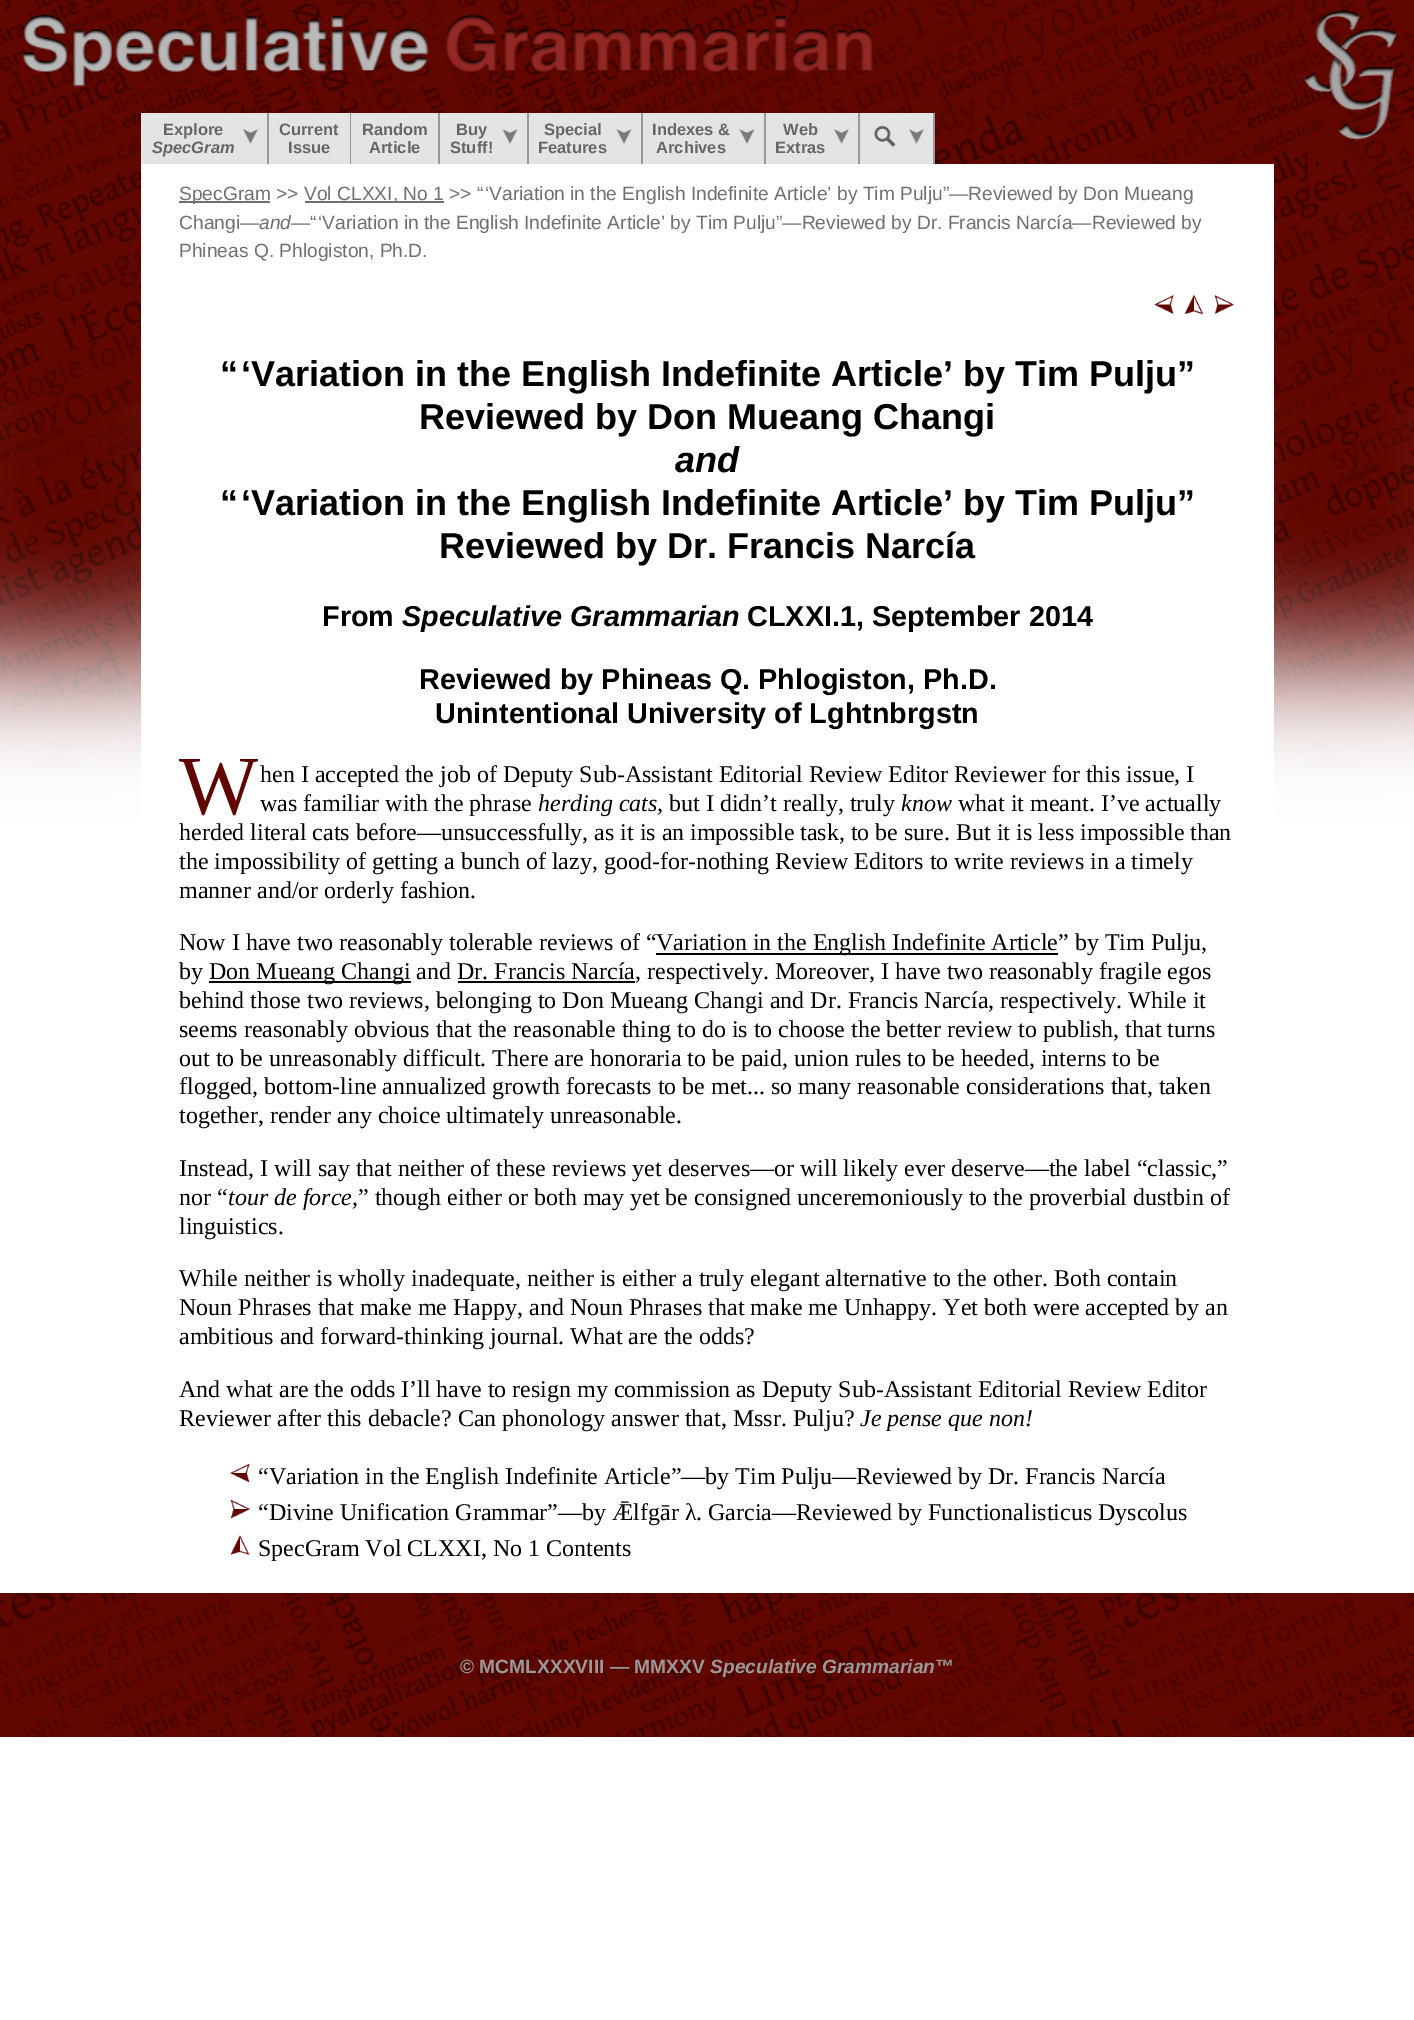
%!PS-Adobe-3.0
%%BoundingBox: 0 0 1414 2020
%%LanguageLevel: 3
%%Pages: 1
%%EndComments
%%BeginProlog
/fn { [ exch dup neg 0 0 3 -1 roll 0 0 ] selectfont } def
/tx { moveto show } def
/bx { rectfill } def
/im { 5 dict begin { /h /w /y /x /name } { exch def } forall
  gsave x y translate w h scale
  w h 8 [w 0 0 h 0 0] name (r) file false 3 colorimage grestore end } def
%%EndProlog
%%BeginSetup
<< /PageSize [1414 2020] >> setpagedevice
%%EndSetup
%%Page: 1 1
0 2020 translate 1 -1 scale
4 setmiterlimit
1 setgray
0 0 1414 2020 bx
(image0.raw) 0 0 1414 1737 im
(image1.raw) 23 14 850 73 im
(image2.raw) 1304 10 93 130 im
0.894 setgray
141 113 126 51 bx
0.6 setgray
267 113 2 51 bx
/LiberationSans-Bold 16.5 fn
0.4 setgray
(Explore) 163 135 tx
(image3.raw) 243 129 15 15 im
/LiberationSans-BoldItalic 16.5 fn
(SpecGram) 152 153 tx
0.894 setgray
269 113 81 51 bx
0.6 setgray
350 113 1 51 bx
/LiberationSans-Bold 16.5 fn
0.4 setgray
(Current) 279 135 tx
(Issue) 288 153 tx
0.894 setgray
351 113 87 51 bx
0.6 setgray
438 113 2 51 bx
0.4 setgray
(Random) 362 135 tx
(Article) 369 153 tx
0.894 setgray
440 113 87 51 bx
0.6 setgray
527 113 2 51 bx
0.4 setgray
(Buy) 456 135 tx
(image4.raw) 502 129 16 15 im
(Stuff!) 450 153 tx
0.894 setgray
529 113 112 51 bx
0.6 setgray
641 113 2 51 bx
0.4 setgray
(Special) 544 135 tx
(image4.raw) 616 129 16 15 im
(Features) 538 153 tx
0.894 setgray
643 113 121 51 bx
0.6 setgray
764 113 2 51 bx
0.4 setgray
(Indexes &) 652 135 tx
(image4.raw) 739 129 16 15 im
(Archives) 656 153 tx
0.894 setgray
766 113 92 51 bx
0.6 setgray
858 113 2 51 bx
0.4 setgray
(Web) 783 135 tx
(image3.raw) 834 129 15 15 im
(Extras) 775 153 tx
0.894 setgray
860 113 73 51 bx
0.6 setgray
933 113 2 51 bx
(image5.raw) 874 125 22 22 im
(image3.raw) 909 129 15 15 im
(image6.raw) 0 403 141 428 im
1 setgray
141 164 1133 1429 bx
0.439 setgray
179 201 91 2 bx
/LiberationSans-Regular 19.2 fn
(SpecGram >>) 179 200 tx
305 201 139 2 bx
(Vol CLXXI, No 1 >> “ ‘Variation in the English Indefinite Article’ by Tim Pulju”—Reviewed by Don Mueang) 304 200 tx
(Changi—) 179 229 tx
/LiberationSans-Italic 19.2 fn
(and) 259 229 tx
/LiberationSans-Regular 19.2 fn
(—“ ‘Variation in the English Indefinite Article’ by Tim Pulju”—Reviewed by Dr. Francis Narcía—Reviewed by) 291 229 tx
(Phineas Q. Phlogiston, Ph.D.) 179 257 tx
(image7.raw) 1154 295 20 20 im
(image8.raw) 1184 294 20 21 im
(image9.raw) 1214 295 20 20 im
/LiberationSans-Bold 36 fn
0 setgray
(“ ‘Variation in the English Indefinite Article’ by Tim Pulju”) 220 386 tx
(Reviewed by Don Mueang Changi) 419 429 tx
/LiberationSans-BoldItalic 36 fn
(and) 675 472 tx
/LiberationSans-Bold 36 fn
(“ ‘Variation in the English Indefinite Article’ by Tim Pulju”) 220 515 tx
(Reviewed by Dr. Francis Narcía) 439 558 tx
/LiberationSans-Bold 28.8 fn
(From) 322 626 tx
/LiberationSans-BoldItalic 28.8 fn
(Speculative Grammarian) 402 626 tx
/LiberationSans-Bold 28.8 fn
(CLXXI.1, September 2014) 747 626 tx
(Reviewed by Phineas Q. Phlogiston, Ph.D.) 419 689 tx
(Unintentional University of Lghtnbrgstn) 435 723 tx
/LiberationSerif-Regular 84 fn
0.373 0.02 0.016 setrgbcolor
(W) 179 814 tx
/LiberationSerif-Regular 24 fn
0 setgray
(hen I accepted the job of Deputy Sub-Assistant Editorial Review Editor Reviewer for this issue, I) 260 782 tx
(was familiar with the phrase) 260 811 tx
/LiberationSerif-Italic 24 fn
(herding cats,) 538 811 tx
/LiberationSerif-Regular 24 fn
(but I didn’t really, truly) 669 811 tx
/LiberationSerif-Italic 24 fn
(know) 901 811 tx
/LiberationSerif-Regular 24 fn
(what it meant. I’ve actually) 958 811 tx
(herded literal cats before—unsuccessfully, as it is an impossible task, to be sure. But it is less impossible than) 179 840 tx
(the impossibility of getting a bunch of lazy, good-for-nothing Review Editors to write reviews in a timely) 179 869 tx
(manner and/or orderly fashion.) 179 898 tx
(Now I have two reasonably tolerable reviews of “) 179 950 tx
656 953 402 2 bx
(Variation in the English Indefinite Article” by Tim Pulju,) 656 950 tx
(by) 179 979 tx
209 981 202 2 bx
(Don Mueang Changi and Dr. Francis Narcía, respectively. Moreover, I have two reasonably fragile egos) 209 979 tx
458 981 177 2 bx
(behind those two reviews, belonging to Don Mueang Changi and Dr. Francis Narcía, respectively. While it) 179 1008 tx
(seems reasonably obvious that the reasonable thing to do is to choose the better review to publish, that turns) 179 1037 tx
(out to be unreasonably difficult. There are honoraria to be paid, union rules to be heeded, interns to be) 179 1066 tx
(flogged, bottom-line annualized growth forecasts to be met... so many reasonable considerations that, taken) 179 1094 tx
(together, render any choice ultimately unreasonable.) 179 1123 tx
(Instead, I will say that neither of these reviews yet deserves—or will likely ever deserve—the label “classic,”) 179 1176 tx
(nor “) 179 1205 tx
/LiberationSerif-Italic 24 fn
(tour de force,) 228 1205 tx
/LiberationSerif-Regular 24 fn
(” though either or both may yet be consigned unceremoniously to the proverbial dustbin of) 358 1205 tx
(linguistics.) 179 1234 tx
(While neither is wholly inadequate, neither is either a truly elegant alternative to the other. Both contain) 179 1286 tx
(Noun Phrases that make me Happy, and Noun Phrases that make me Unhappy. Yet both were accepted by an) 179 1315 tx
(ambitious and forward-thinking journal. What are the odds?) 179 1344 tx
(And what are the odds I’ll have to resign my commission as Deputy Sub-Assistant Editorial Review Editor) 179 1397 tx
(Reviewer after this debacle? Can phonology answer that, Mssr. Pulju?) 179 1426 tx
/LiberationSerif-Italic 24 fn
(Je pense que non!) 860 1426 tx
(image10.raw) 230 1463 20 20 im
/LiberationSerif-Regular 24 fn
(“Variation in the English Indefinite Article”—by Tim Pulju—Reviewed by Dr. Francis Narcía) 258 1484 tx
(image11.raw) 230 1499 20 20 im
(“Divine Unification Grammar”—by Ǣlfgār λ. Garcia—Reviewed by Functionalisticus Dyscolus) 258 1520 tx
(image12.raw) 230 1535 20 20 im
(SpecGram Vol CLXXI, No 1 Contents) 258 1556 tx
(image13.raw) 1274 403 140 428 im
1 setgray
0 831 141 762 bx
1274 831 140 762 bx
/LiberationSans-Bold 19.2 fn
0.6 setgray
(© MCMLXXXVIII — MMXXV) 460 1673 tx
/LiberationSans-BoldItalic 19.2 fn
(Speculative Grammarian) 710 1673 tx
/LiberationSans-Bold 19.2 fn
(™) 935 1673 tx
showpage
%%EOF
